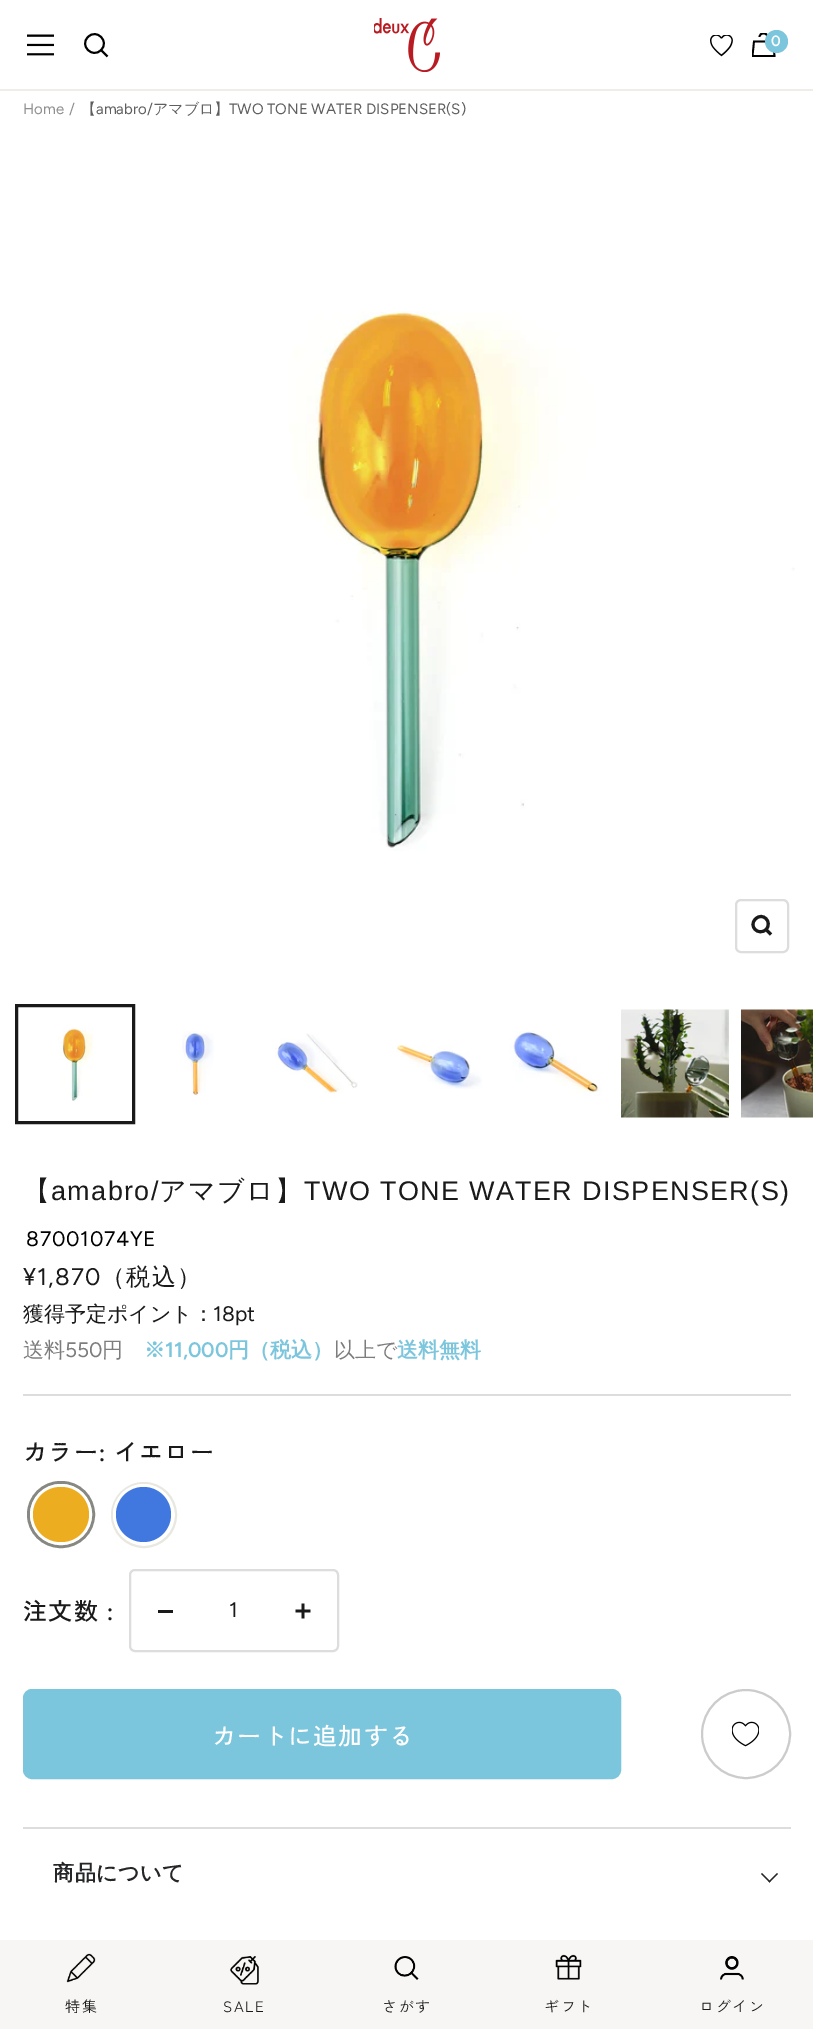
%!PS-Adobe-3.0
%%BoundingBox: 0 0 813 2029
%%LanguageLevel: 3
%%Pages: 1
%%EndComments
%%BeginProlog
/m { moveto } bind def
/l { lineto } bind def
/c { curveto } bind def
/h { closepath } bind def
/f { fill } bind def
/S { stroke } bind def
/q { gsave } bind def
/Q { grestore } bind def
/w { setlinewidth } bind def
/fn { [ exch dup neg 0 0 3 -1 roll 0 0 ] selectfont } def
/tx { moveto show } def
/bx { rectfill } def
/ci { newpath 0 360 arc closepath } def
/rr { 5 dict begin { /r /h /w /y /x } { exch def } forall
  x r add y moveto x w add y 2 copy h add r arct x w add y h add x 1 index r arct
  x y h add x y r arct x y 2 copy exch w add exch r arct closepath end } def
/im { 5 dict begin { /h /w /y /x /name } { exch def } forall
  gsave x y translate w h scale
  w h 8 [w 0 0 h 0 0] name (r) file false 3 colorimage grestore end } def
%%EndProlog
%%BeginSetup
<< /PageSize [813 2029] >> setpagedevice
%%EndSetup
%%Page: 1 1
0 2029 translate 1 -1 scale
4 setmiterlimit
1 setgray
0 0 813 2029 bx
0.941 0.929 0.914 setrgbcolor
0 89 813 2 bx
(image0.raw) 27 34 27 22 im
0 setgray
1.9 w
101 50 m 110 41.5 96.5 28 88 37 c 79 45.5 92.5 59 101 50 c h 101 50 m 107.5 56.5 l S
(image1.raw) 374 18 66 54 im
(image2.raw) 710 35 23 22 im
q
752 33 24 24 rectclip
1.8 w
754 41.5 m 773 41.5 l 774.5 56 l 752.5 56 l h 767.5 37 m 767.5 32 759.5 32 759.5 37 c S
Q
0.486 0.776 0.867 setrgbcolor
776.5 41.5 11.5 ci f
/Figtree-SemiBold 15 fn
1 setgray
(0) 771 46 tx
/Figtree-Regular 15 fn
0.561 setgray
(Home) 23 114 tx
(/) 69 114 tx
/WenQuanYiZenHei-Medium 15 fn
0.373 setgray
(【) 81 114 tx
/Figtree-Regular 15 fn
(amabro/) 96 114 tx
/WenQuanYiZenHei-Medium 15 fn
(アマブロ】) 153 114 tx
/Figtree-Regular 15 fn
(TWO TONE WATER DISPENSER\(S\)) 229 114 tx
(image3.raw) 289 311 506 540 im
0.867 setgray
2 w
736 900 52 52 5 rr S
0.102 setgray
3 w
766 929.5 m 773 922 762.5 911.5 755.5 919 c 748 926 758.5 936.5 766 929.5 c h 766 929.5 m 771 934.5 l S
(image4.raw) 58 1028 35 73 im
16.5 1005.5 117 117 rectstroke
(image5.raw) 182 1031 32 65 im
(image6.raw) 275 1033 83 61 im
(image7.raw) 396 1044 86 45 im
(image8.raw) 508 1031 94 65 im
(image9.raw) 621 1009 108 109 im
(image10.raw) 741 1009 72 109 im
0.867 setgray
23 1394 768 2 bx
/WenQuanYiZenHei-Medium 27 fn
0.102 setgray
23 1200 m 1.35 0 (【) ashow
/LiberationSans-Regular 27 fn
51 1200 m 1.35 0 (amabro/) ashow
/WenQuanYiZenHei-Medium 27 fn
159 1200 m 1.35 0 (アマブロ】) ashow
/LiberationSans-Regular 27 fn
304 1200 m 1.35 0 (TWO TONE WATER DISPENSER\(S\)) ashow
/Figtree-Regular 21 fn
0 setgray
26 1246 m 0.75 0 (87001074YE) ashow
/Figtree-Regular 24 fn
0.102 setgray
23 1285 m 1.25 0 (¥1,870) ashow
/WenQuanYiZenHei-Medium 24 fn
101 1285 m 1.25 0 (（税込）) ashow
/WenQuanYiZenHei-Medium 21 fn
(獲得予定ポイント：) 23 1321 tx
/Figtree-Regular 21 fn
(18pt) 213 1321 tx
/WenQuanYiZenHei-Medium 21 fn
0.49 setgray
(送料) 23 1357 tx
/Figtree-Regular 21 fn
(550) 65 1357 tx
/WenQuanYiZenHei-Medium 21 fn
(円) 102 1357 tx
/WenQuanYiZenHei-Bold 21 fn
0.486 0.776 0.867 setrgbcolor
(※) 144 1357 tx
/Figtree-SemiBold 21 fn
(11,000) 165 1357 tx
/WenQuanYiZenHei-Bold 21 fn
(円（税込）) 228 1357 tx
/WenQuanYiZenHei-Medium 21 fn
0.49 setgray
(以上で) 334 1357 tx
/WenQuanYiZenHei-Bold 21 fn
0.486 0.776 0.867 setrgbcolor
(送料無料) 397 1357 tx
/ZenKakuGothicNew-Medium 24 fn
0.102 setgray
23 1461 m 1.25 0 (カラー: イエロー) ashow
0.533 0.533 0.514 setrgbcolor
28.5 1482.5 65 64 32 rr S
1 setgray
31.5 1485.5 59 58 29 rr S
0.929 0.678 0.129 setrgbcolor
33 1487 56 55 27.5 rr f
0.91 0.91 0.882 setrgbcolor
2 w
144 1515 32 ci S
1 setgray
3 w
143.5 1514.5 29 ci S
0.255 0.471 0.875 setrgbcolor
143.5 1514.5 27.5 ci f
0.102 setgray
23 1620 m 1.25 0 (注文数 :) ashow
0.867 setgray
2 w
130 1570 208 81 5 rr S
0.102 setgray
158 1610 15 3 bx
/Figtree-Regular 21 fn
(1) 229 1617 tx
(image11.raw) 295 1603 16 16 im
0.486 0.776 0.867 setrgbcolor
24 1690 596 88 8 rr q f Q
S
/ZenKakuGothicNew-Medium 24 fn
1 setgray
212 1745 m 1.25 0 (カートに追加する) ashow
0.8 setgray
746 1734 44 ci S
(image12.raw) 732 1721 27 26 im
0.867 setgray
23 1827 768 2 bx
/WenQuanYiZenHei-Bold 21 fn
0.141 0.149 0.157 setrgbcolor
53 1880 m 0.5 0 (商品について) ashow
778 1874 m 769.5 1882.5 l 768.5 1881.5 l 777 1873 l h f
770.5 1881.5 m 769.5 1882.5 l 761 1874 l 762 1873 l h f
0.973 0.965 0.957 setrgbcolor
0 1940 813 89 bx
(image13.raw) 66 1953 30 30 im
/ZenKakuGothicNew-Regular 15 fn
0.102 setgray
65 2012 m 1.5 0 (特集) ashow
(image14.raw) 230 1956 29 29 im
223 2012 m 1.5 0 (SALE) ashow
(image15.raw) 394 1956 25 24 im
382 2012 m 1.5 0 (さがす) ashow
(image16.raw) 555 1954 27 26 im
544 2012 m 1.5 0 (ギフト) ashow
(image17.raw) 720 1956 24 24 im
699 2012 m 1.5 0 (ログイン) ashow
showpage
%%EOF
